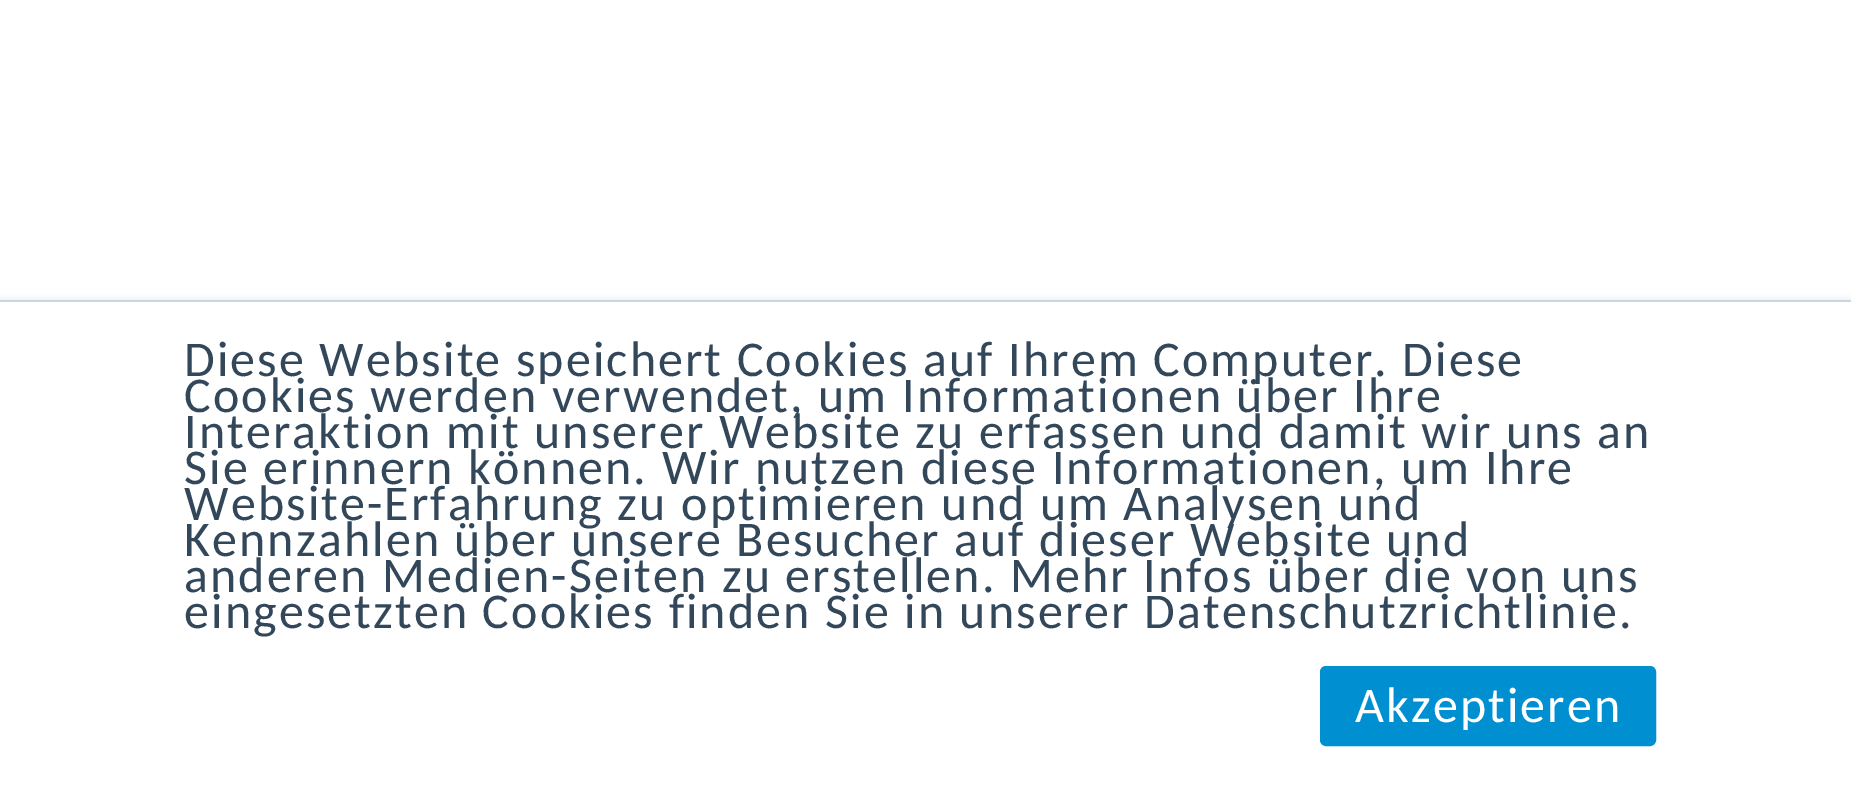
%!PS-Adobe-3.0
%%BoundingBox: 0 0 1851 797
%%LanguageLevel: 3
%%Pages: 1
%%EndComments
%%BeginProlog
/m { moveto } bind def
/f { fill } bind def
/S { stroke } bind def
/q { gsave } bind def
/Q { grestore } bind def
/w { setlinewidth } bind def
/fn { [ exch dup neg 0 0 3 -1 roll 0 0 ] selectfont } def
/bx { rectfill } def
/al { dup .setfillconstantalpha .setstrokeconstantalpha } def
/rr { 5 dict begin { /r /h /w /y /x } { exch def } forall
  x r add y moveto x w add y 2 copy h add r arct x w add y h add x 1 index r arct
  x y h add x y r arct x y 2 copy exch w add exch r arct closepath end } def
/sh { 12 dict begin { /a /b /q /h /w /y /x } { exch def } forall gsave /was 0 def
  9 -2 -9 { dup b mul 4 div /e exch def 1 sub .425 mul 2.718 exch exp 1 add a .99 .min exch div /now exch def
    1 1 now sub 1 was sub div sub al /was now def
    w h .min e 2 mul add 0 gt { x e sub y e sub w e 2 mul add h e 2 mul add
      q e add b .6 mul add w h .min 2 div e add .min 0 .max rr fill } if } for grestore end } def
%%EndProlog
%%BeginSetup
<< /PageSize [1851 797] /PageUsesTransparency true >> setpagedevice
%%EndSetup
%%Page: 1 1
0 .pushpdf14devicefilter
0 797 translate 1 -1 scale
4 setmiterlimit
1 setgray
0 0 1851 797 bx
0.918 0.941 0.965 setrgbcolor
0 298 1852 498 0 3 1 sh
1 setgray
0 302 1851 495 bx
0.796 0.839 0.886 setrgbcolor
0 300 1851 2 bx
/Carlito-Regular 50 fn
0.2 0.278 0.357 setrgbcolor
184 376 m 2.1 0 (Diese Website speichert Cookies auf Ihrem Computer. Diese) ashow
184 412 m 2.1 0 (Cookies werden verwendet, um Informationen über Ihre) ashow
184 448 m 2.1 0 (Interaktion mit unserer Website zu erfassen und damit wir uns an) ashow
184 484 m 2.1 0 (Sie erinnern können. Wir nutzen diese Informationen, um Ihre) ashow
184 520 m 2.1 0 (Website-Erfahrung zu optimieren und um Analysen und) ashow
184 556 m 2.1 0 (Kennzahlen über unsere Besucher auf dieser Website und) ashow
184 592 m 2.1 0 (anderen Medien-Seiten zu erstellen. Mehr Infos über die von uns) ashow
184 628 m 2.1 0 (eingesetzten Cookies finden Sie in unserer Datenschutzrichtlinie.) ashow
0 0.565 0.824 setrgbcolor
1321 667 334 78 5 rr q f Q
2 w
S
1 setgray
1355 722 m 2.1 0 (Akzeptieren) ashow
.poppdf14devicefilter showpage
%%EOF
